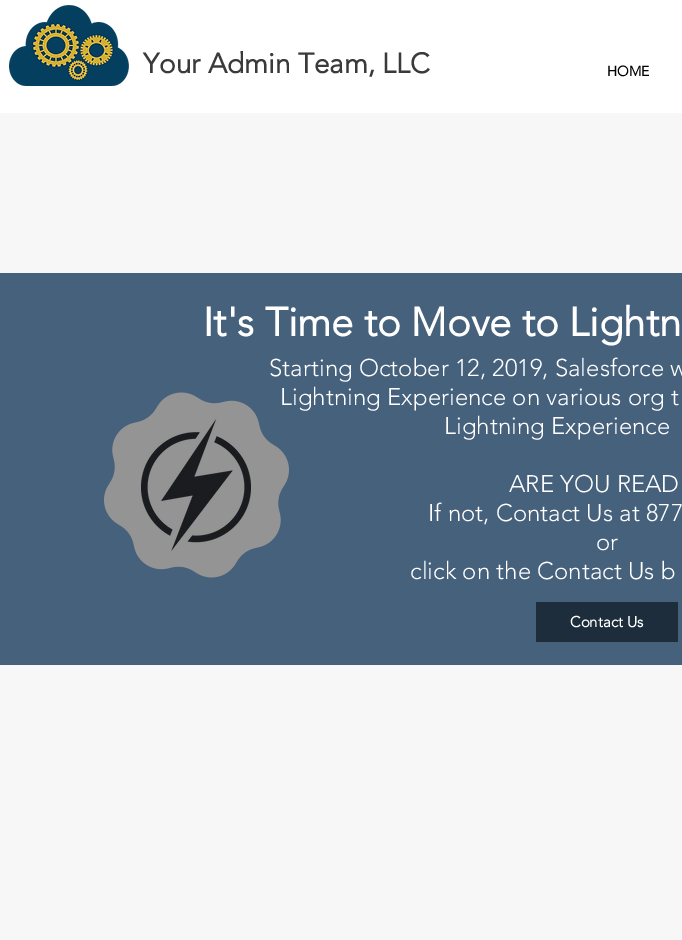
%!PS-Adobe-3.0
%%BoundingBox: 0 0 682 940
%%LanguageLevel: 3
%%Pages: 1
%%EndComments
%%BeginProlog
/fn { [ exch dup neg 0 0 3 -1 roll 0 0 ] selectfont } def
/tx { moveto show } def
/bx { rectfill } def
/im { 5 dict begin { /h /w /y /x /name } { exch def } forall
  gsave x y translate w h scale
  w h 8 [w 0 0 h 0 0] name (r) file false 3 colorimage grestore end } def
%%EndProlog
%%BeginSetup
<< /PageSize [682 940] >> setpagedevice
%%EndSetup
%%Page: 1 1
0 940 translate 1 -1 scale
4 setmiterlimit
0.969 setgray
0 0 682 940 bx
1 setgray
0 0 682 113 bx
(image0.raw) 9 5 120 81 im
/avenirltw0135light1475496-Bold 28 fn
0.231 0.227 0.227 setrgbcolor
(Your Admin Team, LLC) 143 73 tx
/avenirltw0135light1475496-Bold 14 fn
0 setgray
(HOME) 607 76 tx
0.275 0.38 0.486 setrgbcolor
0 273 682 392 bx
/avenirltw0135light1475496-Bold 40 fn
1 setgray
(It's Time to Move to Lightn) 203 336 tx
(image1.raw) 104 392 185 186 im
/avenirltw0135light1475496-Light 24 fn
(Starting October 12, 2019, Salesforce w) 269 376 tx
(Lightning Experience on various org t) 280 405 tx
(Lightning Experience) 444 434 tx
(ARE YOU READ) 509 492 tx
(If not, Contact Us at 877) 428 521 tx
(or) 596 550 tx
(click on the Contact Us b) 410 579 tx
(image2.raw) 141 419 110 132 im
0.118 0.176 0.231 setrgbcolor
536 602 142 40 bx
/avenirltw0135light1475496-Bold 15 fn
1 setgray
(Contact Us) 570 627 tx
showpage
%%EOF
